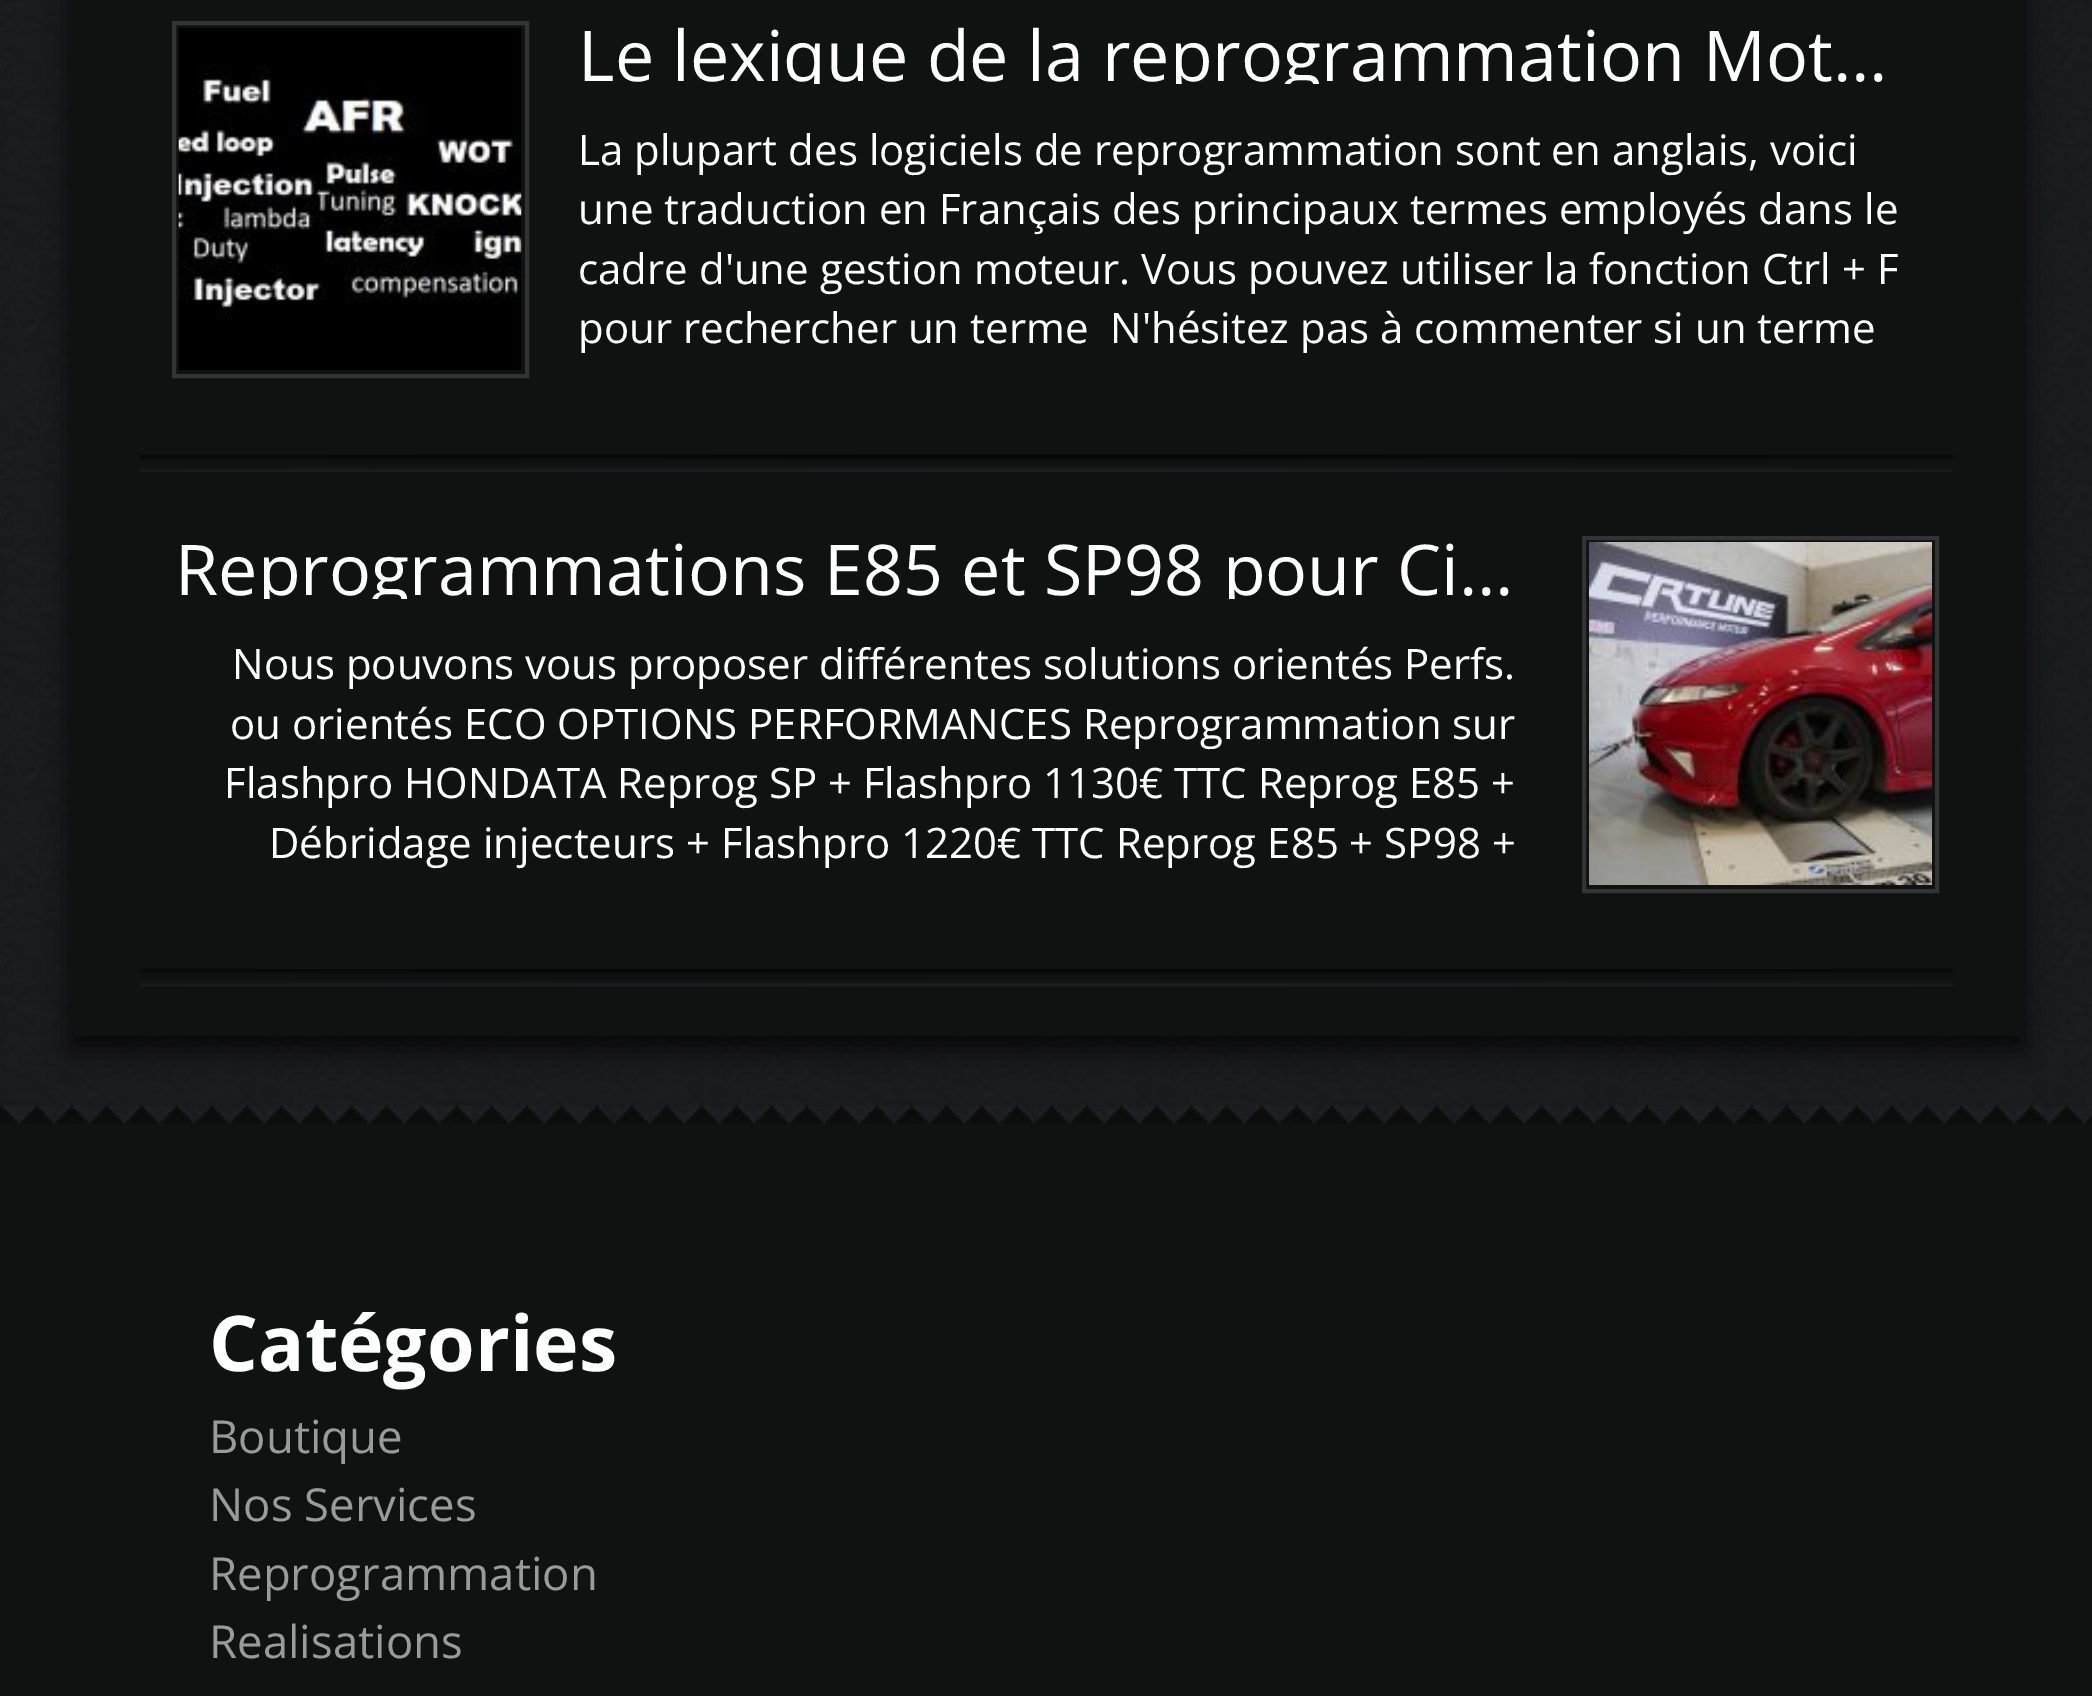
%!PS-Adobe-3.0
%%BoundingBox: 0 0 2092 1696
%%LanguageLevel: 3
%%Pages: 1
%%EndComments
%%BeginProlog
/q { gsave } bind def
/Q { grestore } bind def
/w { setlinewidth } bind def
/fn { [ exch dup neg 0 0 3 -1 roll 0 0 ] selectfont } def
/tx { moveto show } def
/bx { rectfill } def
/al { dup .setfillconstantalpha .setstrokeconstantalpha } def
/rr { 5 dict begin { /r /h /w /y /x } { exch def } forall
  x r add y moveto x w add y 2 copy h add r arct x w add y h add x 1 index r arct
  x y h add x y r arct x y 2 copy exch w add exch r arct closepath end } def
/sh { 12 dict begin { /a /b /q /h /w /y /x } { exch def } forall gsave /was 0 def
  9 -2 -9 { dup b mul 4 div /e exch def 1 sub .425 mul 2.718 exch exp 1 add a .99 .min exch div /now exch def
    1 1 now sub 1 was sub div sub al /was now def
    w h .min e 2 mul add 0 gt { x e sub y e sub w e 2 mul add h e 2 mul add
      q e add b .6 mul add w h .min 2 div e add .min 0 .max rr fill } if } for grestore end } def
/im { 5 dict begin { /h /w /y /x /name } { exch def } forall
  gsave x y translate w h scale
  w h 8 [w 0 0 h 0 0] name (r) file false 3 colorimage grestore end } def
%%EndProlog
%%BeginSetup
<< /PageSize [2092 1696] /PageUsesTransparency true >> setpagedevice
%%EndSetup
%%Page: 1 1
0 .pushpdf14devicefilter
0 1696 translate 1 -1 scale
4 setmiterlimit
1 setgray
0 0 2092 1696 bx
(image0.raw) 0 0 2092 1106 im
0 setgray
70 -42 1953 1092 0 14 0.7 sh
0.063 0.067 0.067 setrgbcolor
70 0 1953 1036 bx
(image1.raw) 178 27 344 344 im
0.2 setgray
4 w
174 23 353 353 rectstroke
q
543 7 1410 77 rectclip
/OpenSans-Regular 70 fn
1 setgray
(Le lexique de la reprogrammation Mot…) 578 81 tx
Q
/OpenSans-Regular 42 fn
1 setgray
(La plupart des logiciels de reprogrammation sont en anglais, voici) 578 165 tx
(une traduction en Français des principaux termes employés dans le) 578 224 tx
(cadre d'une gestion moteur. Vous pouvez utiliser la fonction Ctrl + F) 578 284 tx
(pour rechercher un terme  N'hésitez pas à commenter si un terme) 578 343 tx
(image2.raw) 140 454 1813 18 im
q
140 522 1411 77 rectclip
/OpenSans-Regular 70 fn
(Reprogrammations E85 et SP98 pour Ci…) 175 595 tx
Q
(Nous pouvons vous proposer différentes solutions orientés Perfs.) 232 679 tx
(ou orientés ECO OPTIONS PERFORMANCES Reprogrammation sur) 230 739 tx
(Flashpro HONDATA Reprog SP + Flashpro 1130€ TTC Reprog E85 +) 224 798 tx
(Débridage injecteurs + Flashpro 1220€ TTC Reprog E85 + SP98 +) 269 858 tx
(image3.raw) 1589 542 343 343 im
0.2 setgray
1584 538 353 353 rectstroke
(image4.raw) 140 969 1813 18 im
(image5.raw) 0 1105 2092 1 im
0.063 0.067 0.067 setrgbcolor
0 1124 2092 572 bx
(image6.raw) 0 1105 2092 19 im
/OpenSans-Bold 77 fn
1 setgray
(Catégories) 209 1371 tx
/OpenSans-Regular 45.5 fn
0.6 0.604 0.604 setrgbcolor
(Boutique) 209 1453 tx
(Nos Services) 209 1521 tx
(Reprogrammation) 209 1590 tx
(Realisations) 209 1658 tx
.poppdf14devicefilter showpage
%%EOF
